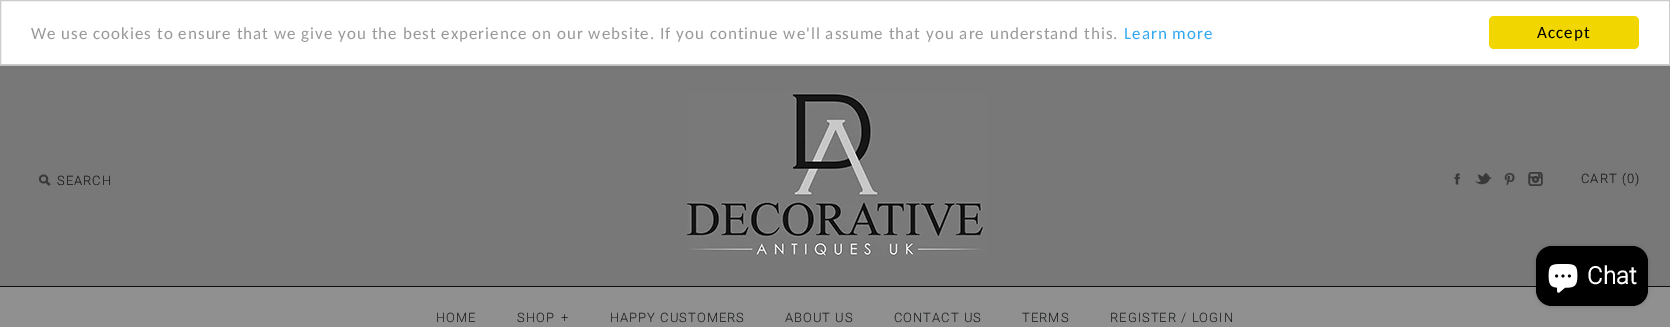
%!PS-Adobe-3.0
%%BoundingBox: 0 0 1670 327
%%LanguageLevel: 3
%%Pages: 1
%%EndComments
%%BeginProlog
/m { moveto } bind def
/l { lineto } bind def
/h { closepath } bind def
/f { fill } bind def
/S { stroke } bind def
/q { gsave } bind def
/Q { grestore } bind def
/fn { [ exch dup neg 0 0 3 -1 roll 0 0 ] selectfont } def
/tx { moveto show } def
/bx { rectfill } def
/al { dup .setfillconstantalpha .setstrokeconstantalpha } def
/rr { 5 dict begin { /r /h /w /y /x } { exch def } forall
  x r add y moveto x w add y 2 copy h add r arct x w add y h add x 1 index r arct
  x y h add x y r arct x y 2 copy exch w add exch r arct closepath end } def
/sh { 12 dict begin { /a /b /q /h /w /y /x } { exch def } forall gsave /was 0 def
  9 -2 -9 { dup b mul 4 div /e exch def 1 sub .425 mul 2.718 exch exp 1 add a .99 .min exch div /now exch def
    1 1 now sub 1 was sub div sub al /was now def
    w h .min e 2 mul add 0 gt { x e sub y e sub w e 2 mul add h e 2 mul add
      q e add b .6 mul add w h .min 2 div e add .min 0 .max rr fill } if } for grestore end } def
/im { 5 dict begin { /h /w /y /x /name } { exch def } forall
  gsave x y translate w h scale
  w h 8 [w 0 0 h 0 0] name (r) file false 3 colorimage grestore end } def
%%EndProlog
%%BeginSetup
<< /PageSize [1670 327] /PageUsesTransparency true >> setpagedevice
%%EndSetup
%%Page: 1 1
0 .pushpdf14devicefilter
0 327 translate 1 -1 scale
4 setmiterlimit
0.745 0.741 0.733 setrgbcolor
0 0 1670 327 bx
1 setgray
0.5 0.5 m 1669.5 0.5 l 1669.5 64.5 l 0.5 64.5 l h q f Q
0.8 setgray
S
/Carlito-Regular 17 fn
0.6 setgray
31 39 m 1 0 (We use cookies to ensure that we give you the best experience on our website. If you continue we'll assume that you are understand this.) ashow
0.192 0.659 0.941 setrgbcolor
1124 39 m 1 0 (Learn more) ashow
0.945 0.839 0 setrgbcolor
1489 16 150 33 5 rr f
0 setgray
1537 38 m 1 0 (Accept) ashow
0.475 0.471 0.471 setrgbcolor
0 66 1670 220 bx
(image0.raw) 687 92 300 165 im
(image1.raw) 39 174 12 12 im
/Roboto-Light 13 fn
0.055 0.051 0.051 setrgbcolor
57 185 m 1 0 (SEARCH) ashow
(image2.raw) 1454 173 6 12 im
(image3.raw) 1475 173 17 12 im
(image4.raw) 1504 173 11 13 im
(image5.raw) 1528 172 15 14 im
1581 183 m 1 0 (CART \(0\)) ashow
0.565 setgray
0 287 1670 40 bx
0.055 0.051 0.051 setrgbcolor
0 286 1670 1 bx
0 setgray
1536 246 112 60 16 2.5 0.15 sh
1536 246 112 60 16 rr f
(image6.raw) 1548 264 30 29 im
/Roboto-Bold 24 fn
1 setgray
(Chat) 1587 284 tx
/Roboto-Light 13 fn
0.067 0.075 0.075 setrgbcolor
436 322 m 1 0 (HOME) ashow
517 322 m 1 0 (SHOP) ashow
561 322 m 1 0 (+) ashow
610 322 m 1 0 (HAPPY CUSTOMERS) ashow
785 322 m 1 0 (ABOUT US) ashow
894 322 m 1 0 (CONTACT US) ashow
1022 322 m 1 0 (TERMS) ashow
1110 322 m 1 0 (REGISTER / LOGIN) ashow
.poppdf14devicefilter showpage
%%EOF
